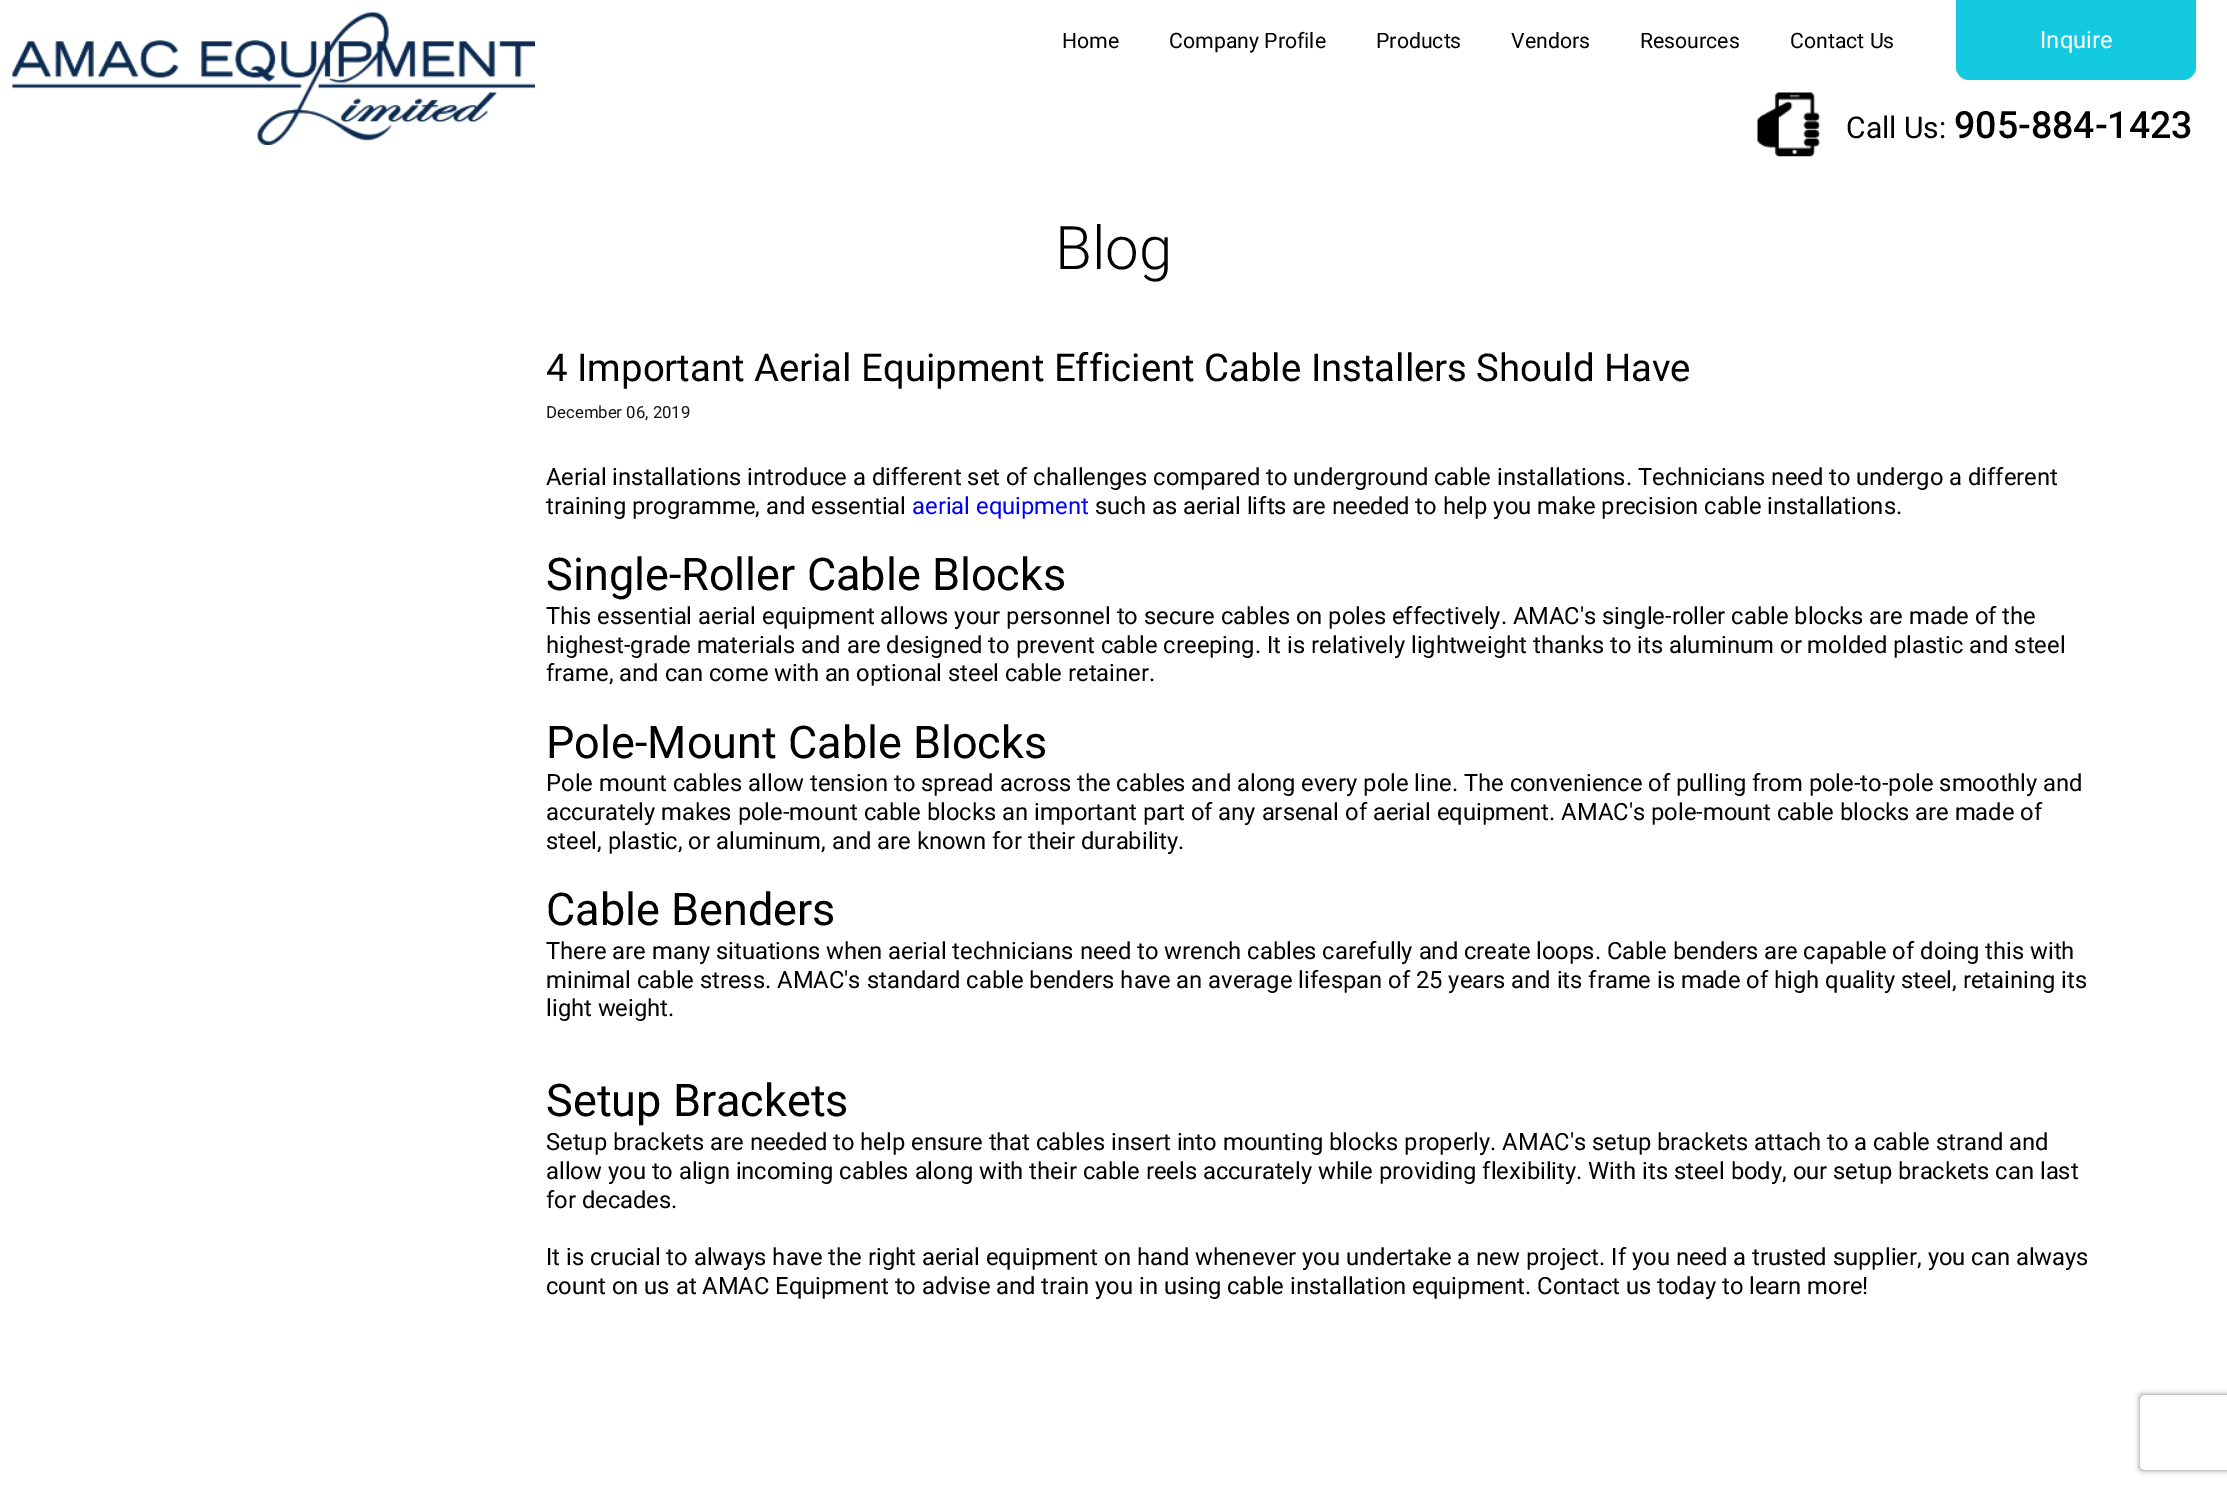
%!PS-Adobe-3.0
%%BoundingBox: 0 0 2227 1487
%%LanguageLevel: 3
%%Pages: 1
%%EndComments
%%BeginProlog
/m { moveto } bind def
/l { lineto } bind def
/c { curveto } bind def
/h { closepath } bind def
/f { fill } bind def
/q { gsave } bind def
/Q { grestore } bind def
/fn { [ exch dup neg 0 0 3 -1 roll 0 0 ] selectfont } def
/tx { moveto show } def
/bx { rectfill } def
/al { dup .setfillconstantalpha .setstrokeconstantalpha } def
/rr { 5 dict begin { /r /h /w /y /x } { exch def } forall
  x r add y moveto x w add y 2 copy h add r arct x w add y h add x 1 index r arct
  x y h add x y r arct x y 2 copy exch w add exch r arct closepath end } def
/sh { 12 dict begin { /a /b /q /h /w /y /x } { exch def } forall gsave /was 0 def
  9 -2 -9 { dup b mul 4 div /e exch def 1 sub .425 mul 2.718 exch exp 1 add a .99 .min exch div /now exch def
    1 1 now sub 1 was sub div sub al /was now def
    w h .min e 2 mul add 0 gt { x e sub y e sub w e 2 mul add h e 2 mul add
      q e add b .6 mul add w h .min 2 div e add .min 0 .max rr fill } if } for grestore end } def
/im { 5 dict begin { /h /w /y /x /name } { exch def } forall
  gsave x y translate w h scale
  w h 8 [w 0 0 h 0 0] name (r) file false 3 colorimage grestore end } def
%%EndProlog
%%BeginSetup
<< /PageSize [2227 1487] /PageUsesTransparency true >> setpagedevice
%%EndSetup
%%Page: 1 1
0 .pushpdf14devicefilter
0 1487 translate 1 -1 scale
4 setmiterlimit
1 setgray
0 0 2227 1487 bx
(image0.raw) 12 12 523 133 im
/Roboto-Regular 21.25 fn
0 setgray
(Home) 1062 48 tx
(Company Profile) 1169 48 tx
(Products) 1376 48 tx
(Vendors) 1511 48 tx
(Resources) 1640 48 tx
(Contact Us) 1790 48 tx
0.078 0.792 0.878 setrgbcolor
1956 0 m 2196 0 l 2196 67 l 2196 74 2190 80 2183 80 c 1969 80 l 1962 80 1956 74 1956 67 c h f
/Roboto-Regular 23.75 fn
1 setgray
(Inquire) 2040 48 tx
(image1.raw) 1757 92 64 65 im
/Roboto-Regular 30 fn
0 setgray
(Call Us:) 1846 138 tx
/Roboto-Medium 37.5 fn
(905-884-1423) 1954 138 tx
/Roboto-Light 60 fn
(Blog) 1055 269 tx
/Roboto-Regular 38.3 fn
(4 Important Aerial Equipment Efficient Cable Installers Should Have) 546 381 tx
/Roboto-Regular 16.75 fn
0.078 setgray
(December 06, 2019) 546 418 tx
/Roboto-Regular 23.75 fn
0 setgray
(Aerial installations introduce a different set of challenges compared to underground cable installations. Technicians need to undergo a different) 546 485 tx
(training programme, and essential) 546 514 tx
0 0 1 setrgbcolor
(aerial equipment) 912 514 tx
0 setgray
(such as aerial lifts are needed to help you make precision cable installations.) 1095 514 tx
/Roboto-Regular 45 fn
(Single-Roller Cable Blocks) 546 590 tx
/Roboto-Regular 23.75 fn
(This essential aerial equipment allows your personnel to secure cables on poles effectively. AMAC's single-roller cable blocks are made of the) 546 624 tx
(highest-grade materials and are designed to prevent cable creeping. It is relatively lightweight thanks to its aluminum or molded plastic and steel) 546 653 tx
(frame, and can come with an optional steel cable retainer.) 546 681 tx
/Roboto-Regular 45 fn
(Pole-Mount Cable Blocks) 546 758 tx
/Roboto-Regular 23.75 fn
(Pole mount cables allow tension to spread across the cables and along every pole line. The convenience of pulling from pole-to-pole smoothly and) 546 791 tx
(accurately makes pole-mount cable blocks an important part of any arsenal of aerial equipment. AMAC's pole-mount cable blocks are made of) 546 820 tx
(steel, plastic, or aluminum, and are known for their durability.) 546 849 tx
/Roboto-Regular 45 fn
(Cable Benders) 546 925 tx
/Roboto-Regular 23.75 fn
(There are many situations when aerial technicians need to wrench cables carefully and create loops. Cable benders are capable of doing this with) 546 959 tx
(minimal cable stress. AMAC's standard cable benders have an average lifespan of 25 years and its frame is made of high quality steel, retaining its) 546 988 tx
(light weight.) 546 1016 tx
/Roboto-Regular 45 fn
(Setup Brackets) 546 1116 tx
/Roboto-Regular 23.75 fn
(Setup brackets are needed to help ensure that cables insert into mounting blocks properly. AMAC's setup brackets attach to a cable strand and) 546 1150 tx
(allow you to align incoming cables along with their cable reels accurately while providing flexibility. With its steel body, our setup brackets can last) 546 1179 tx
(for decades.) 546 1208 tx
(It is crucial to always have the right aerial equipment on hand whenever you undertake a new project. If you need a trusted supplier, you can always) 546 1265 tx
(count on us at AMAC Equipment to advise and train you in using cable installation equipment. Contact us today to learn more!) 546 1294 tx
q
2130 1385 m 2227 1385 l 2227 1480 l 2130 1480 l h 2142.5 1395 m 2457.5 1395 l 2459 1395 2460 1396 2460 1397.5 c 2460 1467.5 l 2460 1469 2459 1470 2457.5 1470 c 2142.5 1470 l 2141 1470 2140 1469 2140 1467.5 c 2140 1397.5 l 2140 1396 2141 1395 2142.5 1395 c h eoclip newpath
0.502 setgray
2140 1395 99 75 2.5 3 1 sh
Q
.poppdf14devicefilter showpage
%%EOF
